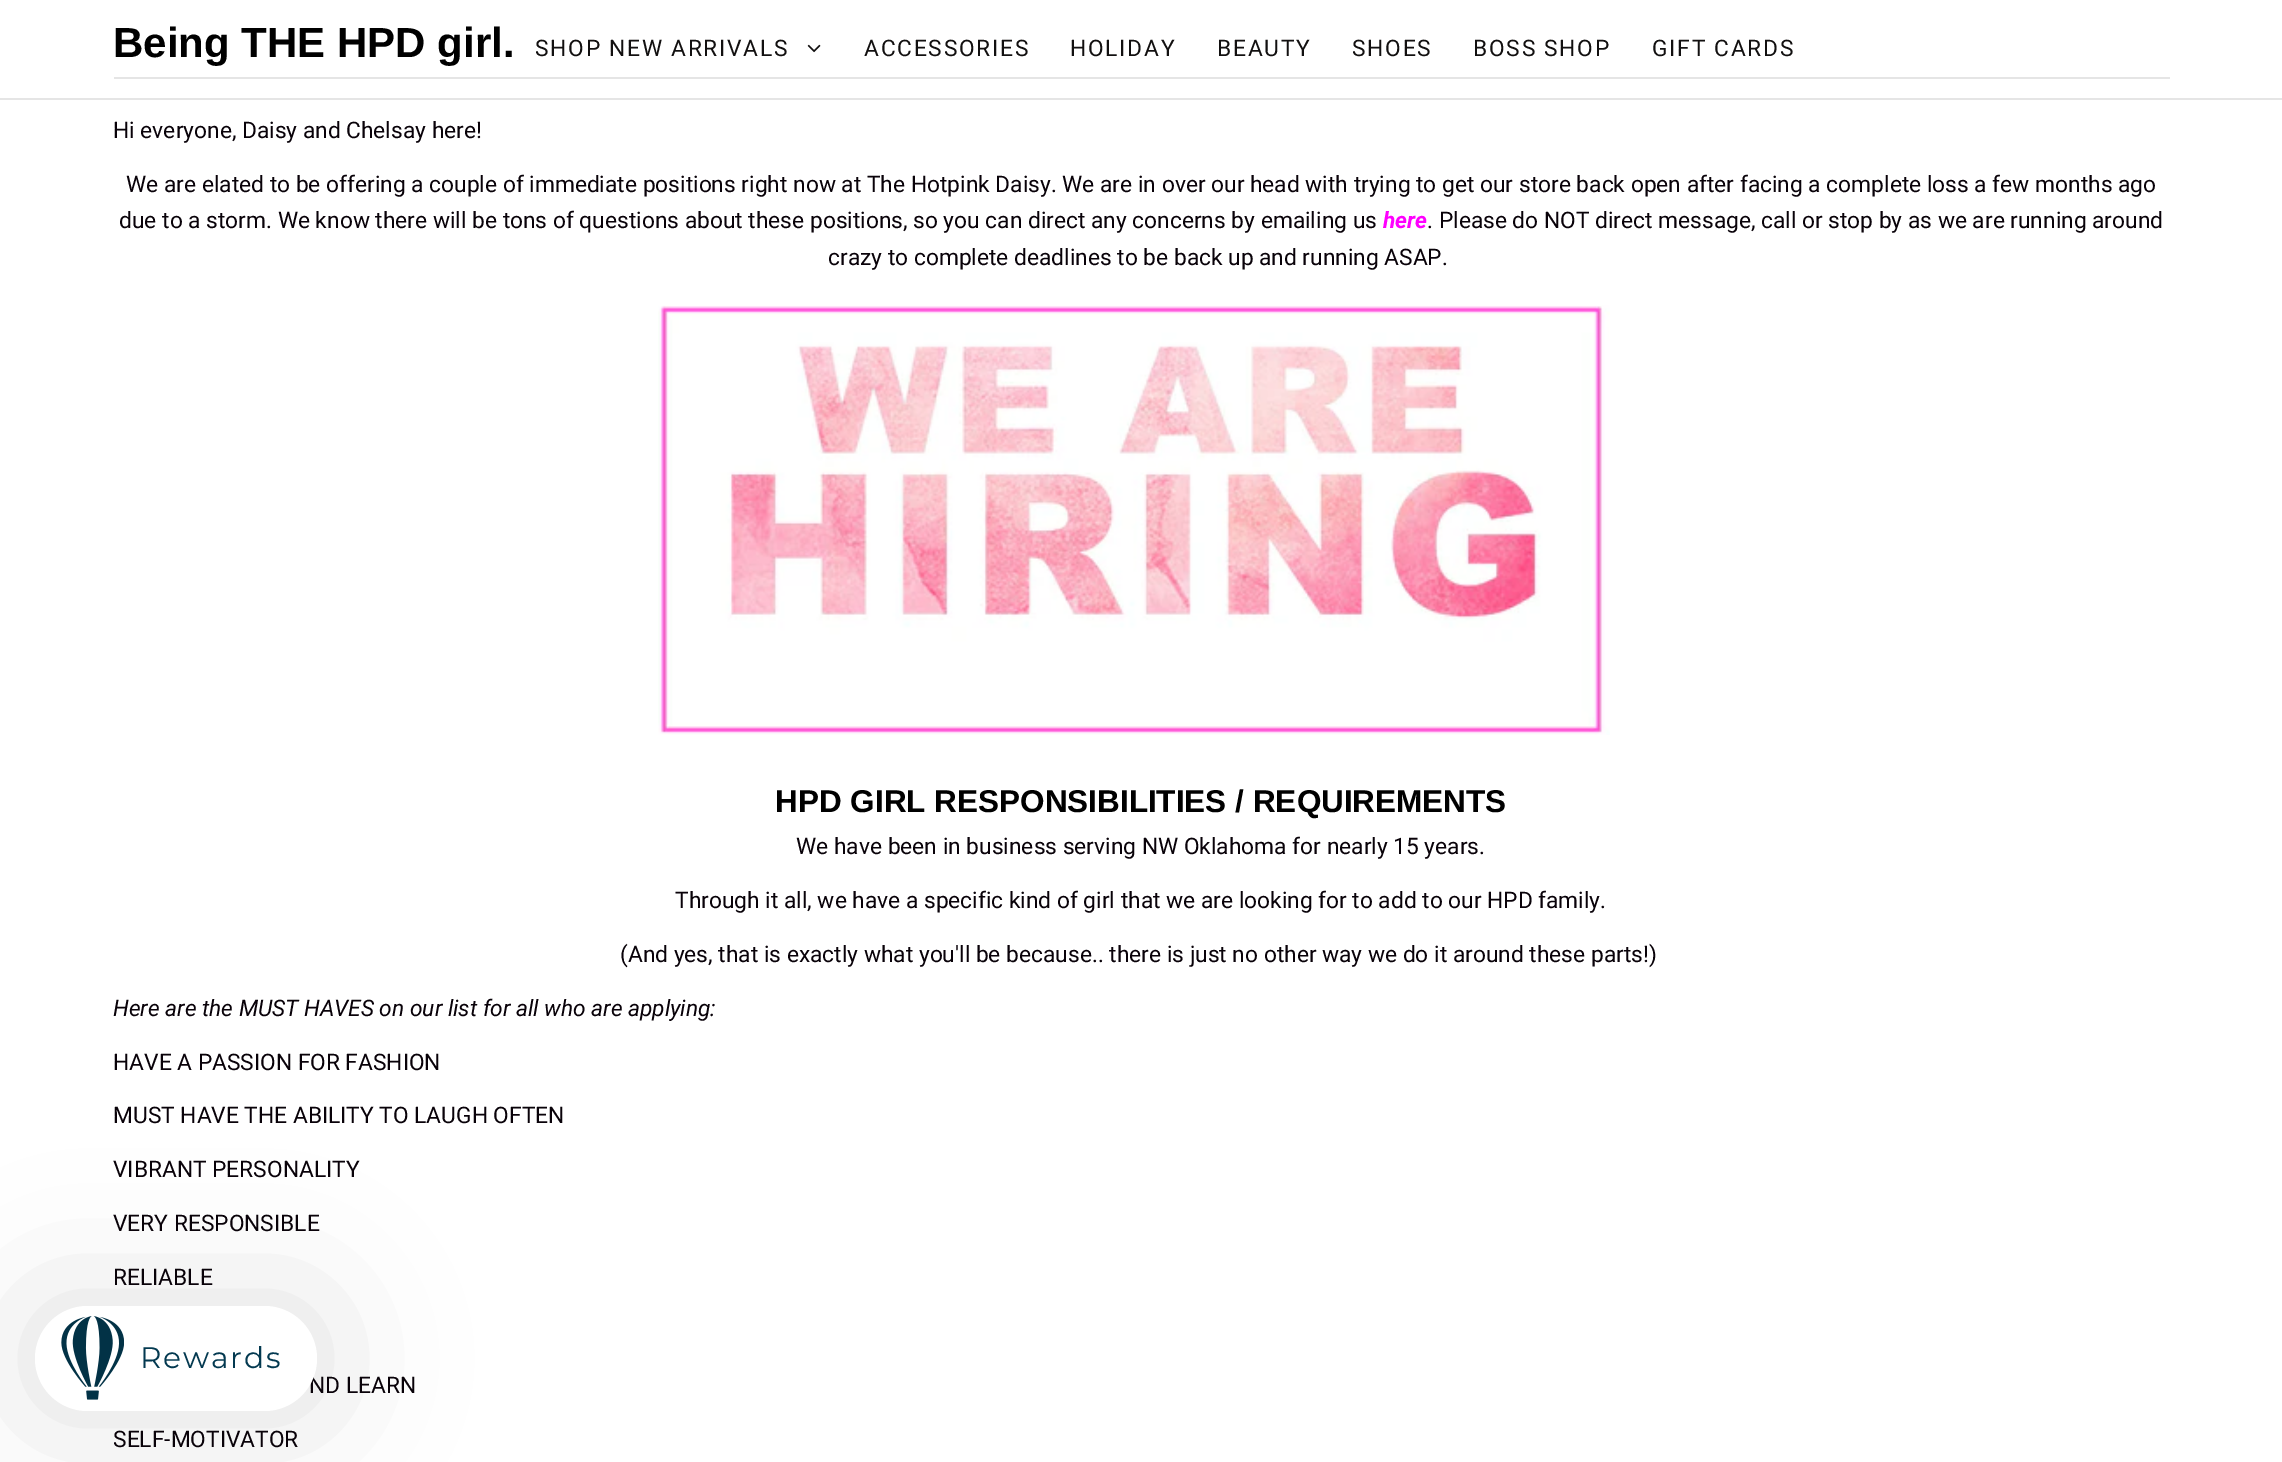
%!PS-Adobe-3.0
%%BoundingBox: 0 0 2282 1462
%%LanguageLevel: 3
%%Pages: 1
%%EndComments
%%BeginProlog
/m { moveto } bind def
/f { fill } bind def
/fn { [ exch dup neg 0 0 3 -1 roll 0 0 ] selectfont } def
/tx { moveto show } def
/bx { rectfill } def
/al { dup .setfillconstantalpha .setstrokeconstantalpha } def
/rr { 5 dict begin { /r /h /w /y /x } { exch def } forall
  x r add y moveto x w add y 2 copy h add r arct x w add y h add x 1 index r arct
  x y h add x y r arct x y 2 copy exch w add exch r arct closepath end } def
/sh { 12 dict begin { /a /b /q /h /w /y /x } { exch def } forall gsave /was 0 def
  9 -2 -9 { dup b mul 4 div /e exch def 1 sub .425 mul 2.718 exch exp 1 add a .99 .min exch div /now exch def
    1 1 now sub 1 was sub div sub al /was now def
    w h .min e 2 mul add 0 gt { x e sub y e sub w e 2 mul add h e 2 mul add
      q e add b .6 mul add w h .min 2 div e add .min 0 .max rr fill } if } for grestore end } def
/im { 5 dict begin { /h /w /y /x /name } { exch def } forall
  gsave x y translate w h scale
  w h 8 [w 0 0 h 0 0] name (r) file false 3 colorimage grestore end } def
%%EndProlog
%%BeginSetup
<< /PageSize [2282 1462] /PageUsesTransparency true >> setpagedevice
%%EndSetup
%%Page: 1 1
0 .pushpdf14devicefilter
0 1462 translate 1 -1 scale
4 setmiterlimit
1 setgray
0 0 2282 1462 bx
0.898 setgray
114 77 2056 2 bx
/LiberationSans-Bold 42 fn
0 setgray
(Being THE HPD girl.) 113 57 tx
/Roboto-Regular 22.75 fn
0.035 0.008 0.035 setrgbcolor
(Hi everyone, Daisy and Chelsay here!) 113 138 tx
(We are elated to be offering a couple of immediate positions right now at The Hotpink Daisy. We are in over our head with trying to get our store back open after facing a complete loss a few months ago) 126 192 tx
(due to a storm. We know there will be tons of questions about these positions, so you can direct any concerns by emailing us) 119 228 tx
/Roboto-BoldItalic 22.75 fn
1 0 1 setrgbcolor
(here) 1383 228 tx
/Roboto-Regular 22.75 fn
0.035 0.008 0.035 setrgbcolor
(. Please do NOT direct message, call or stop by as we are running around) 1427 228 tx
(crazy to complete deadlines to be back up and running ASAP.) 828 265 tx
(image0.raw) 658 305 952 430 im
/LiberationSans-Bold 31.5 fn
0 setgray
(HPD GIRL RESPONSIBILITIES / REQUIREMENTS) 775 812 tx
/Roboto-Regular 22.75 fn
0.035 0.008 0.035 setrgbcolor
(We have been in business serving NW Oklahoma for nearly 15 years.) 796 854 tx
(Through it all, we have a specific kind of girl that we are looking for to add to our HPD family.) 675 908 tx
(\(And yes, that is exactly what you'll be because.. there is just no other way we do it around these parts!\)) 620 962 tx
/Roboto-Italic 22.75 fn
(Here are the MUST HAVES on our list for all who are applying:) 113 1016 tx
/Roboto-Regular 22.75 fn
(HAVE A PASSION FOR FASHION) 113 1070 tx
(MUST HAVE THE ABILITY TO LAUGH OFTEN) 113 1123 tx
(VIBRANT PERSONALITY) 113 1177 tx
(VERY RESPONSIBLE) 113 1231 tx
(RELIABLE) 113 1285 tx
(ND LEARN) 309 1393 tx
(SELF-MOTIVATOR) 113 1447 tx
0.898 setgray
0 98 2282 2 bx
0.071 0.063 0.063 setrgbcolor
535 56 m 1.75 0 (SHOP NEW ARRIVALS) ashow
(image1.raw) 807 44 14 9 im
864 56 m 1.75 0 (ACCESSORIES) ashow
1070 56 m 1.75 0 (HOLIDAY) ashow
1217 56 m 1.75 0 (BEAUTY) ashow
1352 56 m 1.75 0 (SHOES) ashow
1473 56 m 1.75 0 (BOSS SHOP) ashow
1652 56 m 1.75 0 (GIFT CARDS) ashow
0 setgray
35 1306 282 105 52.5 70 0.12 sh
1 setgray
35 1306 282 105 52.5 rr f
(image2.raw) 61 1316 63 84 im
/Montserrat-Regular 29.75 fn
0.012 0.224 0.314 setrgbcolor
140 1368 m 1.75 0 (Rewards) ashow
.poppdf14devicefilter showpage
%%EOF
